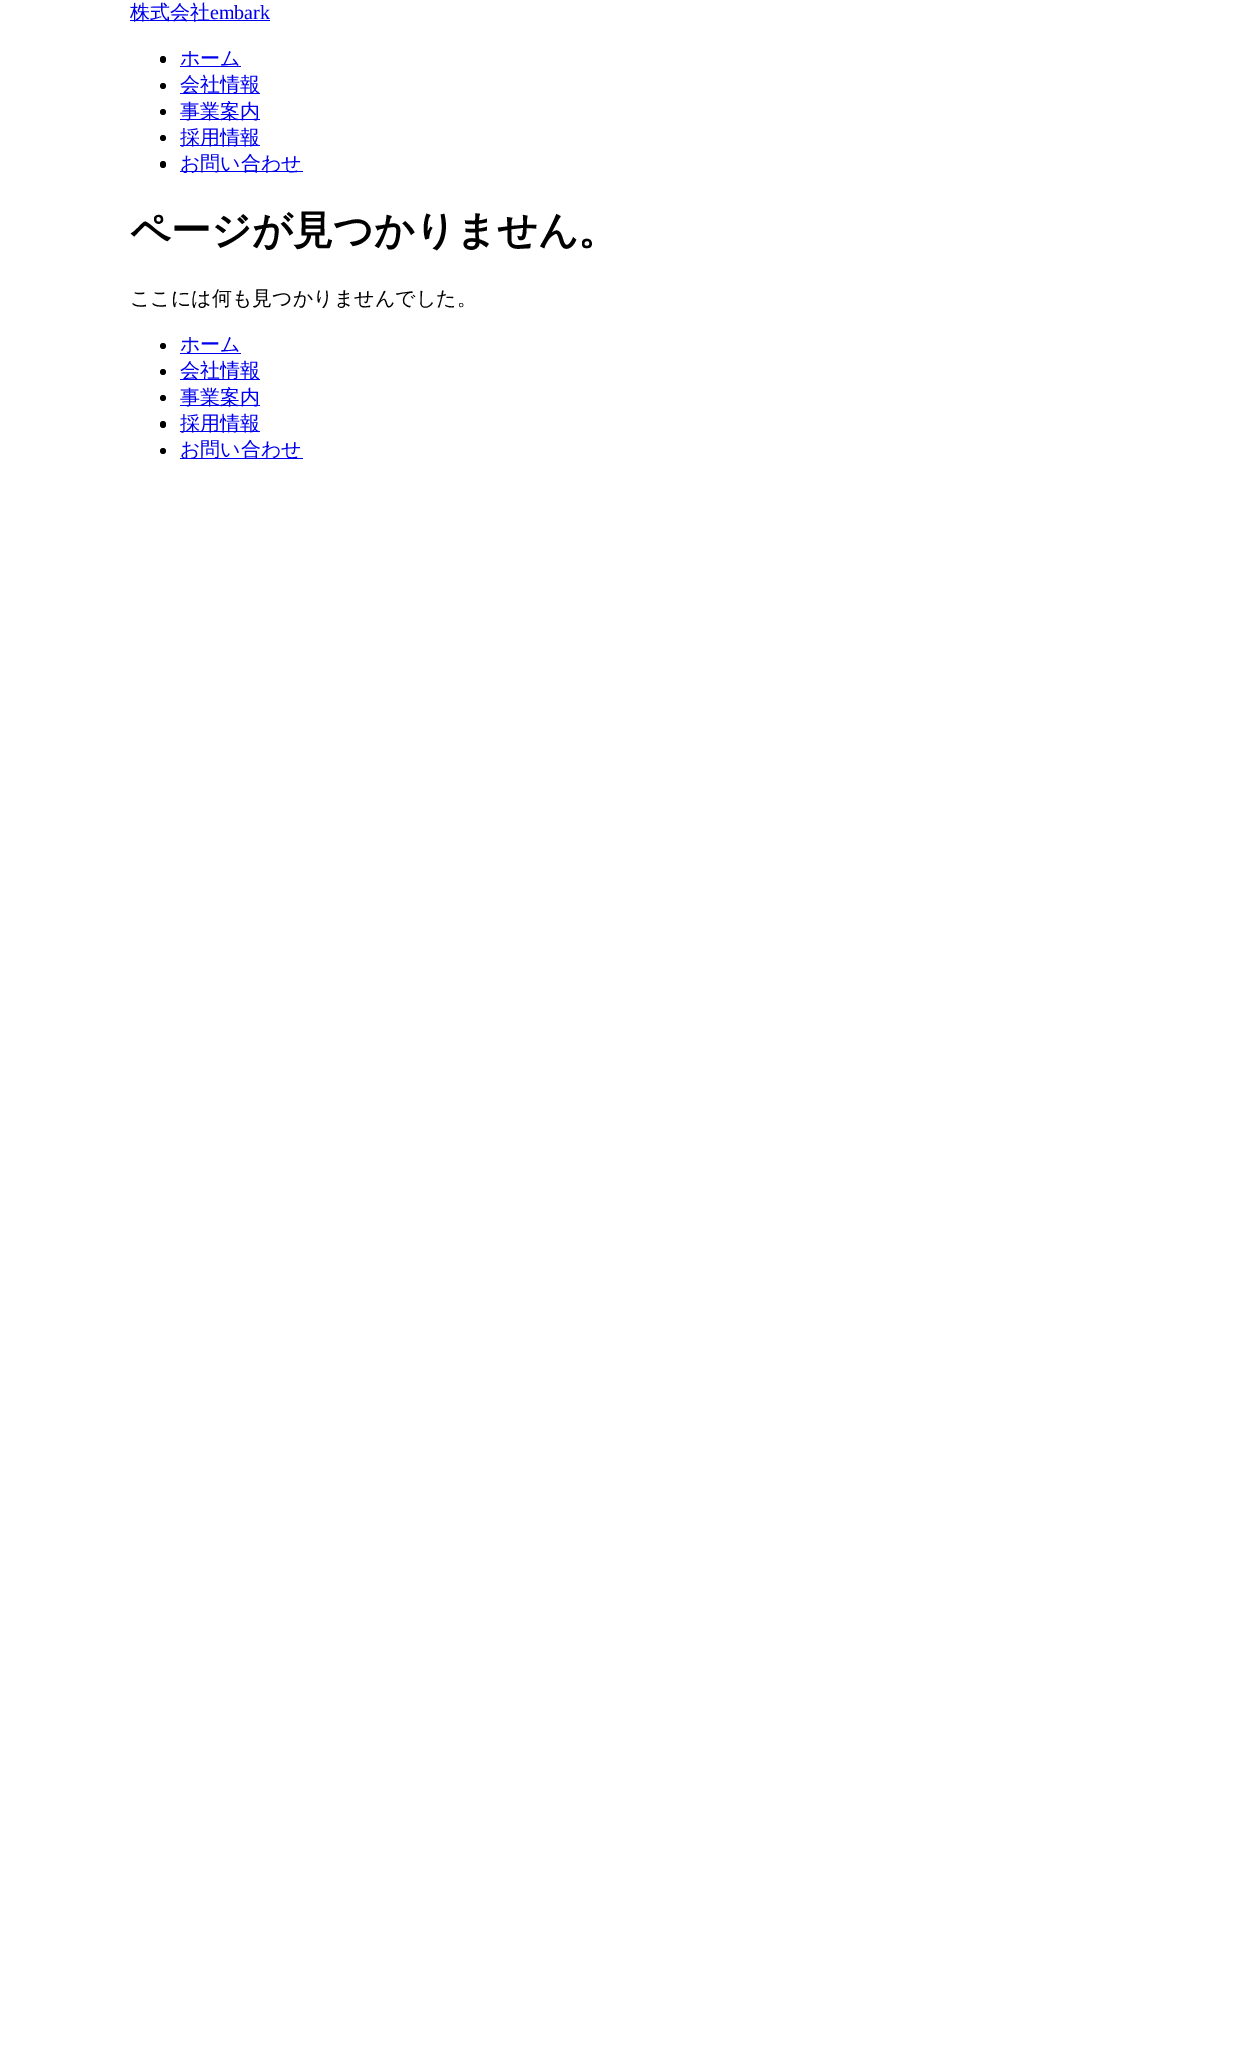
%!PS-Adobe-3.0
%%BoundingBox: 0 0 1259 2062
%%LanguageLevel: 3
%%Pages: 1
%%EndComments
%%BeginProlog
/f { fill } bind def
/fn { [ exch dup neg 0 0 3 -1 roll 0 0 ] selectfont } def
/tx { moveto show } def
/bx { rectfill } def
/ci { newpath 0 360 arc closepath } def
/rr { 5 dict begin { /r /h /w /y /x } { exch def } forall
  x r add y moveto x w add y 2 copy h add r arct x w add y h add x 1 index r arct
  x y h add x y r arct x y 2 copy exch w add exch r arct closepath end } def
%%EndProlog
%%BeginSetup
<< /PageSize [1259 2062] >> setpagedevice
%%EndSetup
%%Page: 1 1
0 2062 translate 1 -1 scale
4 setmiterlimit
1 setgray
0 0 1259 2062 bx
0 0 0.933 setrgbcolor
130 20 140 1 bx
/WenQuanYiZenHei-Medium 20 fn
(株式会社) 130 19 tx
/LiberationSerif-Regular 20 fn
(embark) 210 19 tx
0 setgray
160 56 6 7 3 rr f
0 0 0.933 setrgbcolor
180 66 61 1 bx
/WenQuanYiZenHei-Medium 20 fn
(ホーム) 180 65 tx
0 setgray
163 86 3 ci f
0 0 0.933 setrgbcolor
180 93 80 1 bx
(会社情報) 180 91 tx
0 setgray
163 112 3 ci f
0 0 0.933 setrgbcolor
180 119 80 1 bx
(事業案内) 180 118 tx
0 setgray
163 138 3 ci f
0 0 0.933 setrgbcolor
180 145 80 1 bx
(採用情報) 180 144 tx
0 setgray
160 161 6 7 3 rr f
0 0 0.933 setrgbcolor
180 171 123 1 bx
(お問い合わせ) 180 170 tx
/WenQuanYiZenHei-Bold 40 fn
0 setgray
(ページが見つかりません。) 130 244 tx
/WenQuanYiZenHei-Medium 20 fn
(ここには何も見つかりませんでした。) 130 305 tx
163 346 3 ci f
0 0 0.933 setrgbcolor
180 353 61 1 bx
(ホーム) 180 351 tx
0 setgray
163 372 3 ci f
0 0 0.933 setrgbcolor
180 379 80 1 bx
(会社情報) 180 377 tx
0 setgray
163 398 3 ci f
0 0 0.933 setrgbcolor
180 405 80 1 bx
(事業案内) 180 404 tx
0 setgray
160 421 6 7 3 rr f
0 0 0.933 setrgbcolor
180 431 80 1 bx
(採用情報) 180 430 tx
0 setgray
163 451 3 ci f
0 0 0.933 setrgbcolor
180 458 123 1 bx
(お問い合わせ) 180 456 tx
showpage
%%EOF
